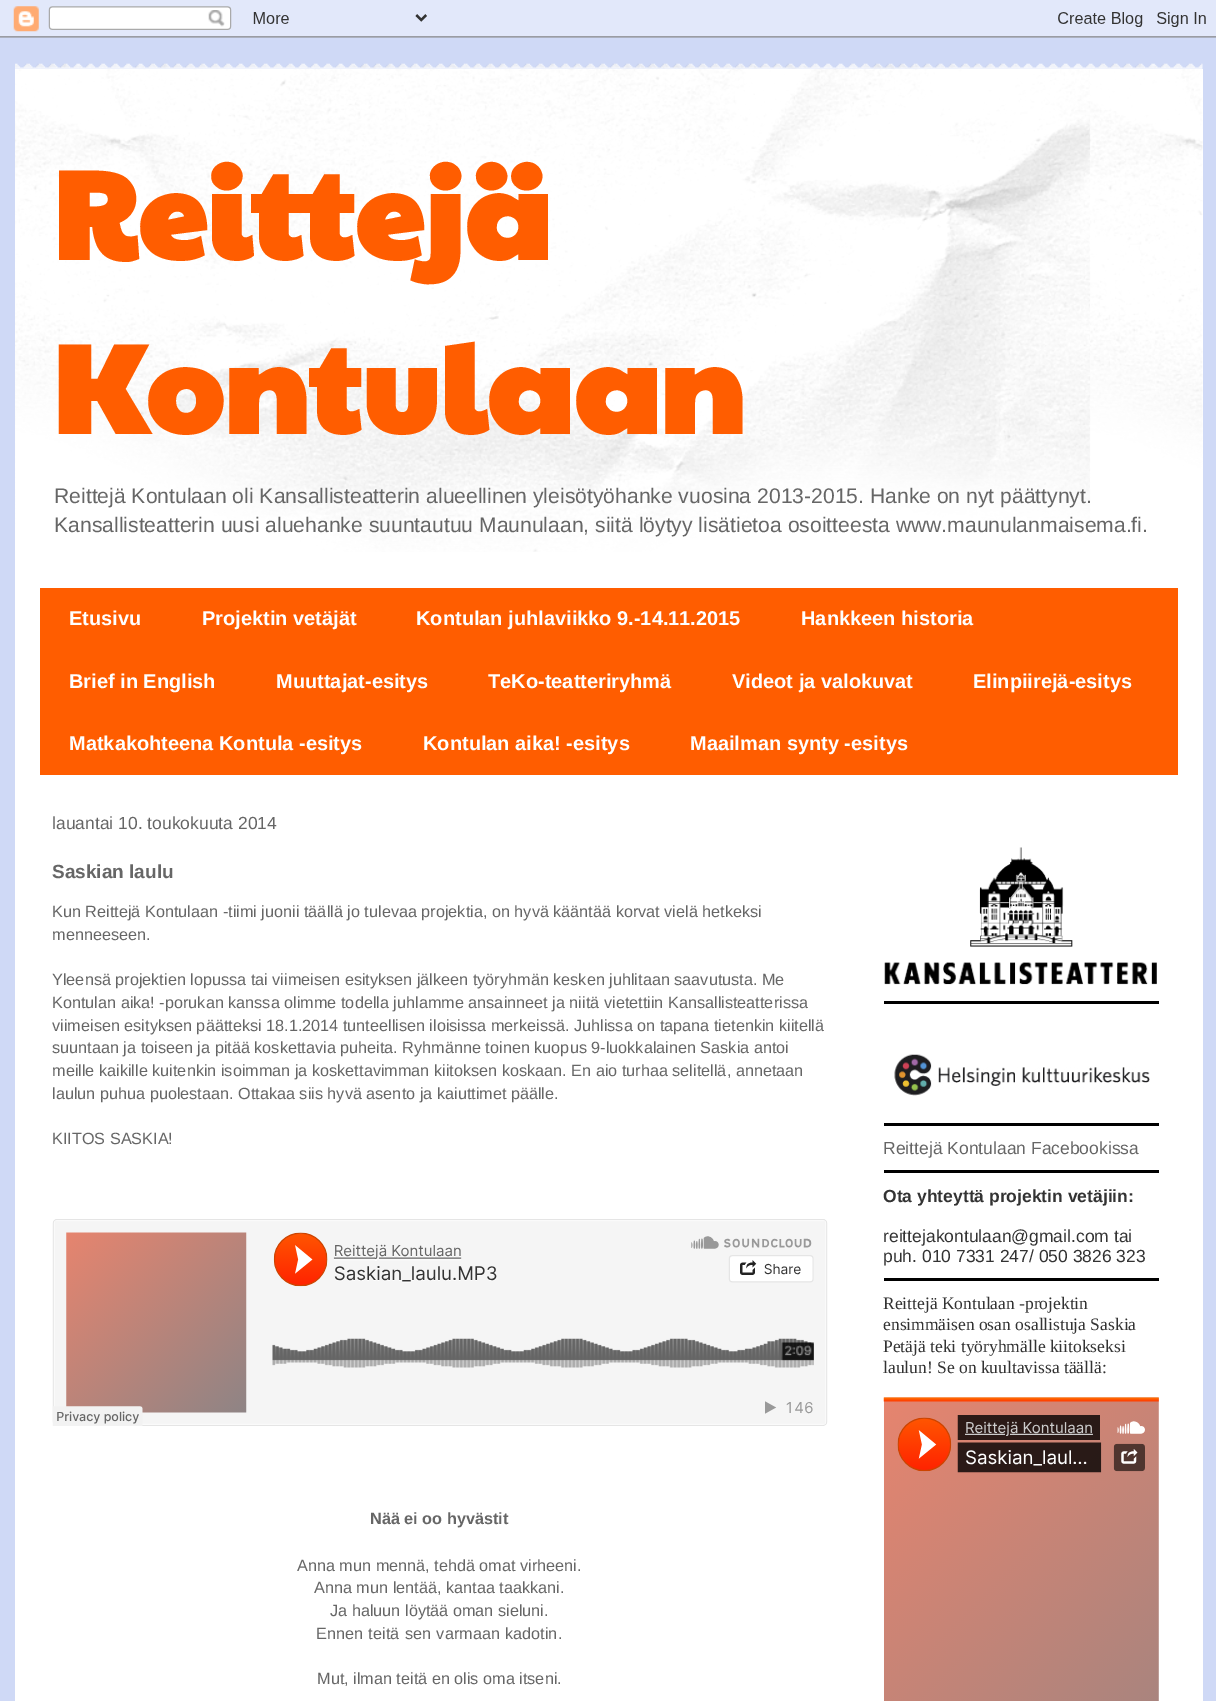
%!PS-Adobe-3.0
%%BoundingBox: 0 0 1216 1701
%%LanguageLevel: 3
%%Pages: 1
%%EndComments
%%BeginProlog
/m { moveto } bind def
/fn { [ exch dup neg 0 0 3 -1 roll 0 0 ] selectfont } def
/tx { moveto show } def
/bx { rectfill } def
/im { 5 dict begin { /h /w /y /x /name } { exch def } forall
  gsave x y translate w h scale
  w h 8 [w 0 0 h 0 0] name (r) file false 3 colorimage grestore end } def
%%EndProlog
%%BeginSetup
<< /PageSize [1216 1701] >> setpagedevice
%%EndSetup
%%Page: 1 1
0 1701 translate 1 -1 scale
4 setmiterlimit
0.812 0.851 0.965 setrgbcolor
0 0 1216 1701 bx
(image0.raw) 0 0 1216 38 im
(image1.raw) 15 63 1188 6 im
1 setgray
15 69 1188 1632 bx
(image2.raw) 15 68 1188 484 im
/PaytoneOne-Bold 125 fn
1 0.365 0 setrgbcolor
(Reittejä) 52 260 tx
(Kontulaan) 52 434 tx
/LiberationSans-Regular 21.12 fn
0.4 setgray
(Reittejä Kontulaan oli Kansallisteatterin alueellinen yleisötyöhanke vuosina 2013-2015. Hanke on nyt päättynyt.) 54 503 tx
(Kansallisteatterin uusi aluehanke suuntautuu Maunulaan, siitä löytyy lisätietoa osoitteesta www.maunulanmaisema.fi.) 54 532 tx
1 0.365 0 setrgbcolor
40 588 1138 187 bx
/LiberationSans-Bold 20 fn
1 setgray
(Etusivu) 69 625 tx
(Projektin vetäjät) 202 625 tx
(Kontulan juhlaviikko 9.-14.11.2015) 416 625 tx
(Hankkeen historia) 801 625 tx
(Brief in English) 69 688 tx
(Muuttajat-esitys) 276 688 tx
(TeKo-teatteriryhmä) 488 688 tx
(Videot ja valokuvat) 732 688 tx
(Elinpiirejä-esitys) 973 688 tx
(Matkakohteena Kontula -esitys) 69 750 tx
(Kontulan aika! -esitys) 423 750 tx
(Maailman synty -esitys) 690 750 tx
/LiberationSans-Regular 17.5 fn
0.4 setgray
(lauantai 10. toukokuuta 2014) 52 829 tx
/LiberationSans-Bold 19 fn
(Saskian laulu) 52 878 tx
/LiberationSans-Regular 16.25 fn
(Kun Reittejä Kontulaan -tiimi juonii täällä jo tulevaa projektia, on hyvä kääntää korvat vielä hetkeksi) 52 917 tx
(menneeseen.) 52 940 tx
(Yleensä projektien lopussa tai viimeisen esityksen jälkeen työryhmän kesken juhlitaan saavutusta. Me) 52 985 tx
(Kontulan aika! -porukan kanssa olimme todella juhlamme ansainneet ja niitä vietettiin Kansallisteatterissa) 52 1008 tx
(viimeisen esityksen päätteksi 18.1.2014 tunteellisen iloisissa merkeissä. Juhlissa on tapana tietenkin kiitellä) 52 1031 tx
(suuntaan ja toiseen ja pitää koskettavia puheita. Ryhmänne toinen kuopus 9-luokkalainen Saskia antoi) 52 1053 tx
(meille kaikille kuitenkin isoimman ja koskettavimman kiitoksen koskaan. En aio turhaa selitellä, annetaan) 52 1076 tx
(laulun puhua puolestaan. Ottakaa siis hyvä asento ja kaiuttimet päälle.) 52 1099 tx
(KIITOS SASKIA!) 52 1144 tx
(image3.raw) 52 1219 776 207 im
/LiberationSans-Bold 16.25 fn
(Nää ei oo hyvästit) 370 1524 tx
/LiberationSans-Regular 16.25 fn
(Anna mun mennä, tehdä omat virheeni.) 297 1571 tx
(Anna mun lentää, kantaa taakkani.) 314 1593 tx
(Ja haluun löytää oman sieluni.) 330 1616 tx
316 1639 m 1 0 32 (Ennen teitä sen varmaan kadotin.) widthshow
(Mut, ilman teitä en olis oma itseni.) 317 1684 tx
0 setgray
884 1001 275 3 bx
(image4.raw) 884 847 273 138 im
884 1123 275 3 bx
(image5.raw) 894 1054 256 42 im
884 1170 275 3 bx
/LiberationSans-Regular 17.5 fn
0.4 setgray
(Reittejä Kontulaan Facebookissa) 883 1154 tx
0 setgray
884 1278 275 3 bx
/LiberationSans-Bold 17.5 fn
0.2 setgray
(Ota yhteyttä projektin vetäjiin:) 883 1202 tx
/LiberationSans-Regular 17.5 fn
(reittejakontulaan@gmail.com tai) 883 1242 tx
(puh. 010 7331 247/ 050 3826 323) 883 1262 tx
/LiberationSerif-Regular 17.5 fn
(Reittejä Kontulaan -projektin) 883 1309 tx
(ensimmäisen osan osallistuja Saskia) 883 1330 tx
(Petäjä teki työryhmälle kiitokseksi) 883 1352 tx
(laulun! Se on kuultavissa täällä:) 883 1373 tx
(image6.raw) 883 1397 276 304 im
showpage
%%EOF
